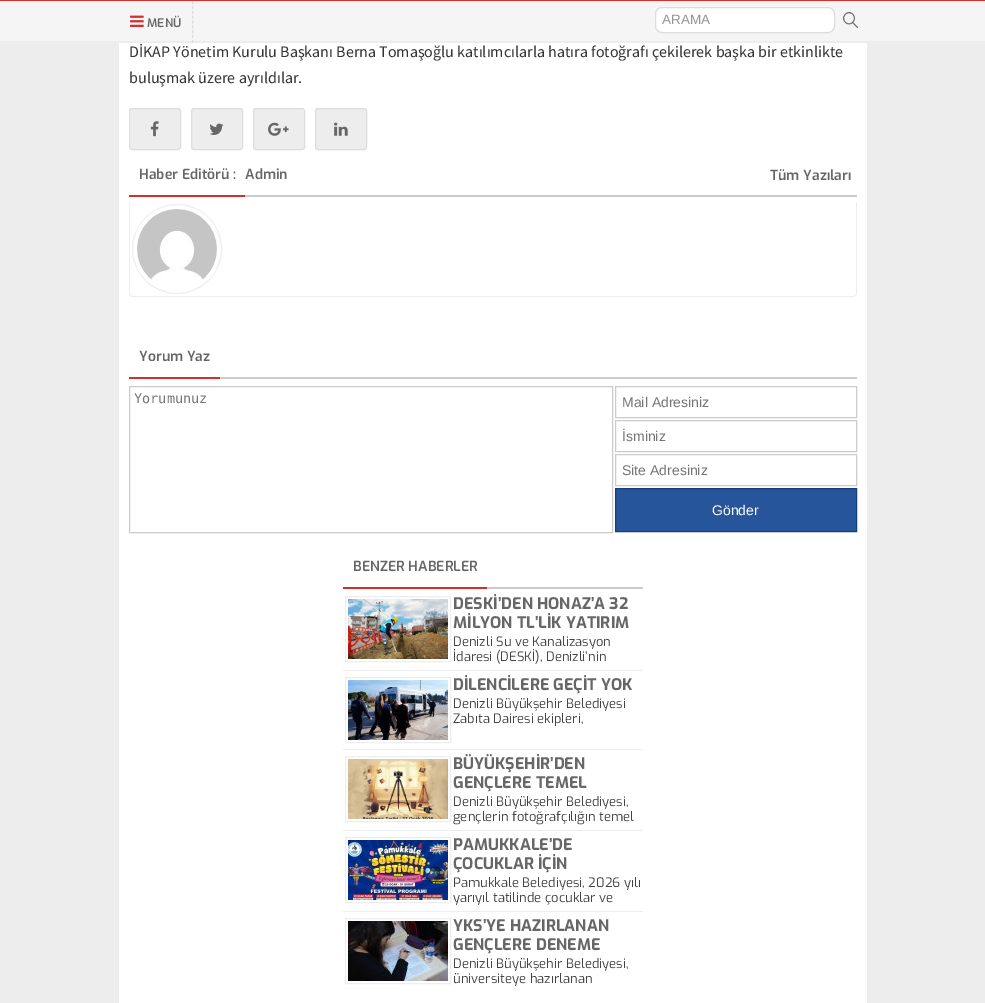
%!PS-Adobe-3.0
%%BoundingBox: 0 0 985 1003
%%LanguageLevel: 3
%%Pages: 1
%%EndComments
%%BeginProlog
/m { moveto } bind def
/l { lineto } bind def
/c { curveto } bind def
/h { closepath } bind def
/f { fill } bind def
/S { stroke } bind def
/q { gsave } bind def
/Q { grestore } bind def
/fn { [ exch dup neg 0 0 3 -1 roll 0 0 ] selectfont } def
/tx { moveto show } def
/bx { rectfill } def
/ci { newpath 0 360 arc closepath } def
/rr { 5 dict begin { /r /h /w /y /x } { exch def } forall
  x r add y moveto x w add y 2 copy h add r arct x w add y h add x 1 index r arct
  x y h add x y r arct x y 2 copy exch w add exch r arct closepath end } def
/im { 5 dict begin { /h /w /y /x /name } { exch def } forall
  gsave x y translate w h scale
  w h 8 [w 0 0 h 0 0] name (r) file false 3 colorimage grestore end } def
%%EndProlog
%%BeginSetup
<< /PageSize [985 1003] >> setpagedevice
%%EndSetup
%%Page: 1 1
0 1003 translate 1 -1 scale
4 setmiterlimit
0.929 setgray
0 0 985 1003 bx
0.961 setgray
0 1 985 40 bx
0.827 0.184 0.184 setrgbcolor
0 0 985 1 bx
0.867 setgray
[3 1.88] 0 setdash
192.5 1 m 192.5 43 l S
(image0.raw) 130 15 14 12 im
/Exo-SemiBold 12 fn
0.4 setgray
(MENÜ) 147 27 tx
1 setgray
655.5 7.5 179 25 6.5 rr q f Q
0.867 setgray
[] 0 setdash
S
/LiberationSans-Regular 13.5 fn
0.584 setgray
(ARAMA) 662 24 tx
(image1.raw) 843 12 15 16 im
1 setgray
119 43 748 960 bx
/SourceSansPro-Regular 16 fn
0.2 setgray
(DİKAP Yönetim Kurulu Başkanı Berna Tomaşoğlu katılımcılarla hatıra fotoğrafı çekilerek başka bir etkinlikte) 129 57 tx
(buluşmak üzere ayrıldılar.) 129 83 tx
0.929 setgray
129.5 108.5 51 41 2.5 rr q f Q
0.867 setgray
S
(image2.raw) 150 121 9 16 im
0.929 setgray
191.5 108.5 51 41 2.5 rr q f Q
0.867 setgray
S
(image3.raw) 209 123 15 12 im
0.929 setgray
253.5 108.5 51 41 2.5 rr q f Q
0.867 setgray
S
(image4.raw) 268 122 21 14 im
0.929 setgray
315.5 108.5 51 41 2.5 rr q f Q
0.867 setgray
S
(image5.raw) 334 122 14 14 im
0.8 setgray
245 195 612 2 bx
0.827 0.184 0.184 setrgbcolor
129 195 116 2 bx
/Exo-SemiBold 14 fn
0.4 setgray
(Haber Editörü :) 139 179 tx
(Admin) 245 179 tx
(Tüm Yazıları) 770 180 tx
0.933 setgray
129 202 m 857 202 l 857 293 l 857 295 855 297 853 297 c 133 297 l 131 297 129 295 129 293 c h 130 202 m 856 202 l 856 293 l 856 295 855 296 853 296 c 133 296 l 131 296 130 295 130 293 c h eofill
177 249 44.5 ci S
(image6.raw) 137 209 80 71 im
0.8 setgray
220 377 637 2 bx
0.827 0.184 0.184 setrgbcolor
129 377 91 2 bx
0.4 setgray
(Yorum Yaz) 139 361 tx
0.8 setgray
129.5 386.5 483 146 rectstroke
/DejaVuSansMono-Regular 13.5 fn
0.459 setgray
(Yorumunuz) 134 403 tx
0.8 setgray
615.5 386.5 241 31 rectstroke
/LiberationSans-Regular 14 fn
0.459 setgray
(Mail Adresiniz) 622 407 tx
0.8 setgray
615.5 420.5 241 31 rectstroke
0.459 setgray
(İsminiz) 622 441 tx
0.8 setgray
615.5 454.5 241 31 rectstroke
0.459 setgray
(Site Adresiniz) 622 475 tx
0.153 0.333 0.608 setrgbcolor
615.5 488.5 m 856.5 488.5 l 856.5 531.5 l 615.5 531.5 l h q f Q
0.086 0.243 0.482 setrgbcolor
S
1 setgray
(Gönder) 712 515 tx
0.8 setgray
487 587 156 2 bx
0.827 0.184 0.184 setrgbcolor
343 587 144 2 bx
/Exo-SemiBold 14 fn
0.4 setgray
(BENZER HABERLER) 353 571 tx
0.933 setgray
343 670 300 1 bx
345.5 596.5 105 65 rectstroke
(image7.raw) 348 599 100 60 im
/Exo-Bold 16 fn
0.4 setgray
(DESKİ’DEN HONAZ’A 32) 453 609 tx
(MİLYON TL’LİK YATIRIM) 453 628 tx
/Exo-Regular 13 fn
0.267 setgray
(Denizli Su ve Kanalizasyon) 453 646 tx
(İdaresi \(DESKİ\), Denizli’nin) 453 661 tx
0.933 setgray
343 749 300 1 bx
345.5 677.5 105 65 rectstroke
(image8.raw) 348 680 100 60 im
q
453 675 190 19 rectclip
/Exo-Bold 16 fn
0.4 setgray
(DİLENCİLERE GEÇİT YOK) 453 690 tx
Q
0.267 setgray
(Denizli Büyükşehir Belediyesi) 453 708 tx
(Zabıta Dairesi ekipleri,) 453 723 tx
0.933 setgray
343 830 300 1 bx
345.5 756.5 105 65 rectstroke
(image9.raw) 348 759 100 60 im
/Exo-Bold 16 fn
0.4 setgray
(BÜYÜKŞEHİR’DEN) 453 769 tx
(GENÇLERE TEMEL) 453 788 tx
/Exo-Regular 13 fn
0.267 setgray
(Denizli Büyükşehir Belediyesi,) 453 806 tx
(gençlerin fotoğrafçılığın temel) 453 821 tx
0.933 setgray
343 911 300 1 bx
345.5 837.5 105 65 rectstroke
(image10.raw) 348 840 100 60 im
/Exo-Bold 16 fn
0.4 setgray
(PAMUKKALE’DE) 453 850 tx
(ÇOCUKLAR İÇİN) 453 869 tx
/Exo-Regular 13 fn
0.267 setgray
(Pamukkale Belediyesi, 2026 yılı) 453 887 tx
(yarıyıl tatilinde çocuklar ve) 453 902 tx
0.933 setgray
345.5 918.5 105 65 rectstroke
(image11.raw) 348 921 100 60 im
/Exo-Bold 16 fn
0.4 setgray
(YKS’YE HAZIRLANAN) 453 931 tx
(GENÇLERE DENEME) 453 950 tx
/Exo-Regular 13 fn
0.267 setgray
(Denizli Büyükşehir Belediyesi,) 453 968 tx
(üniversiteye hazırlanan) 453 983 tx
showpage
%%EOF
